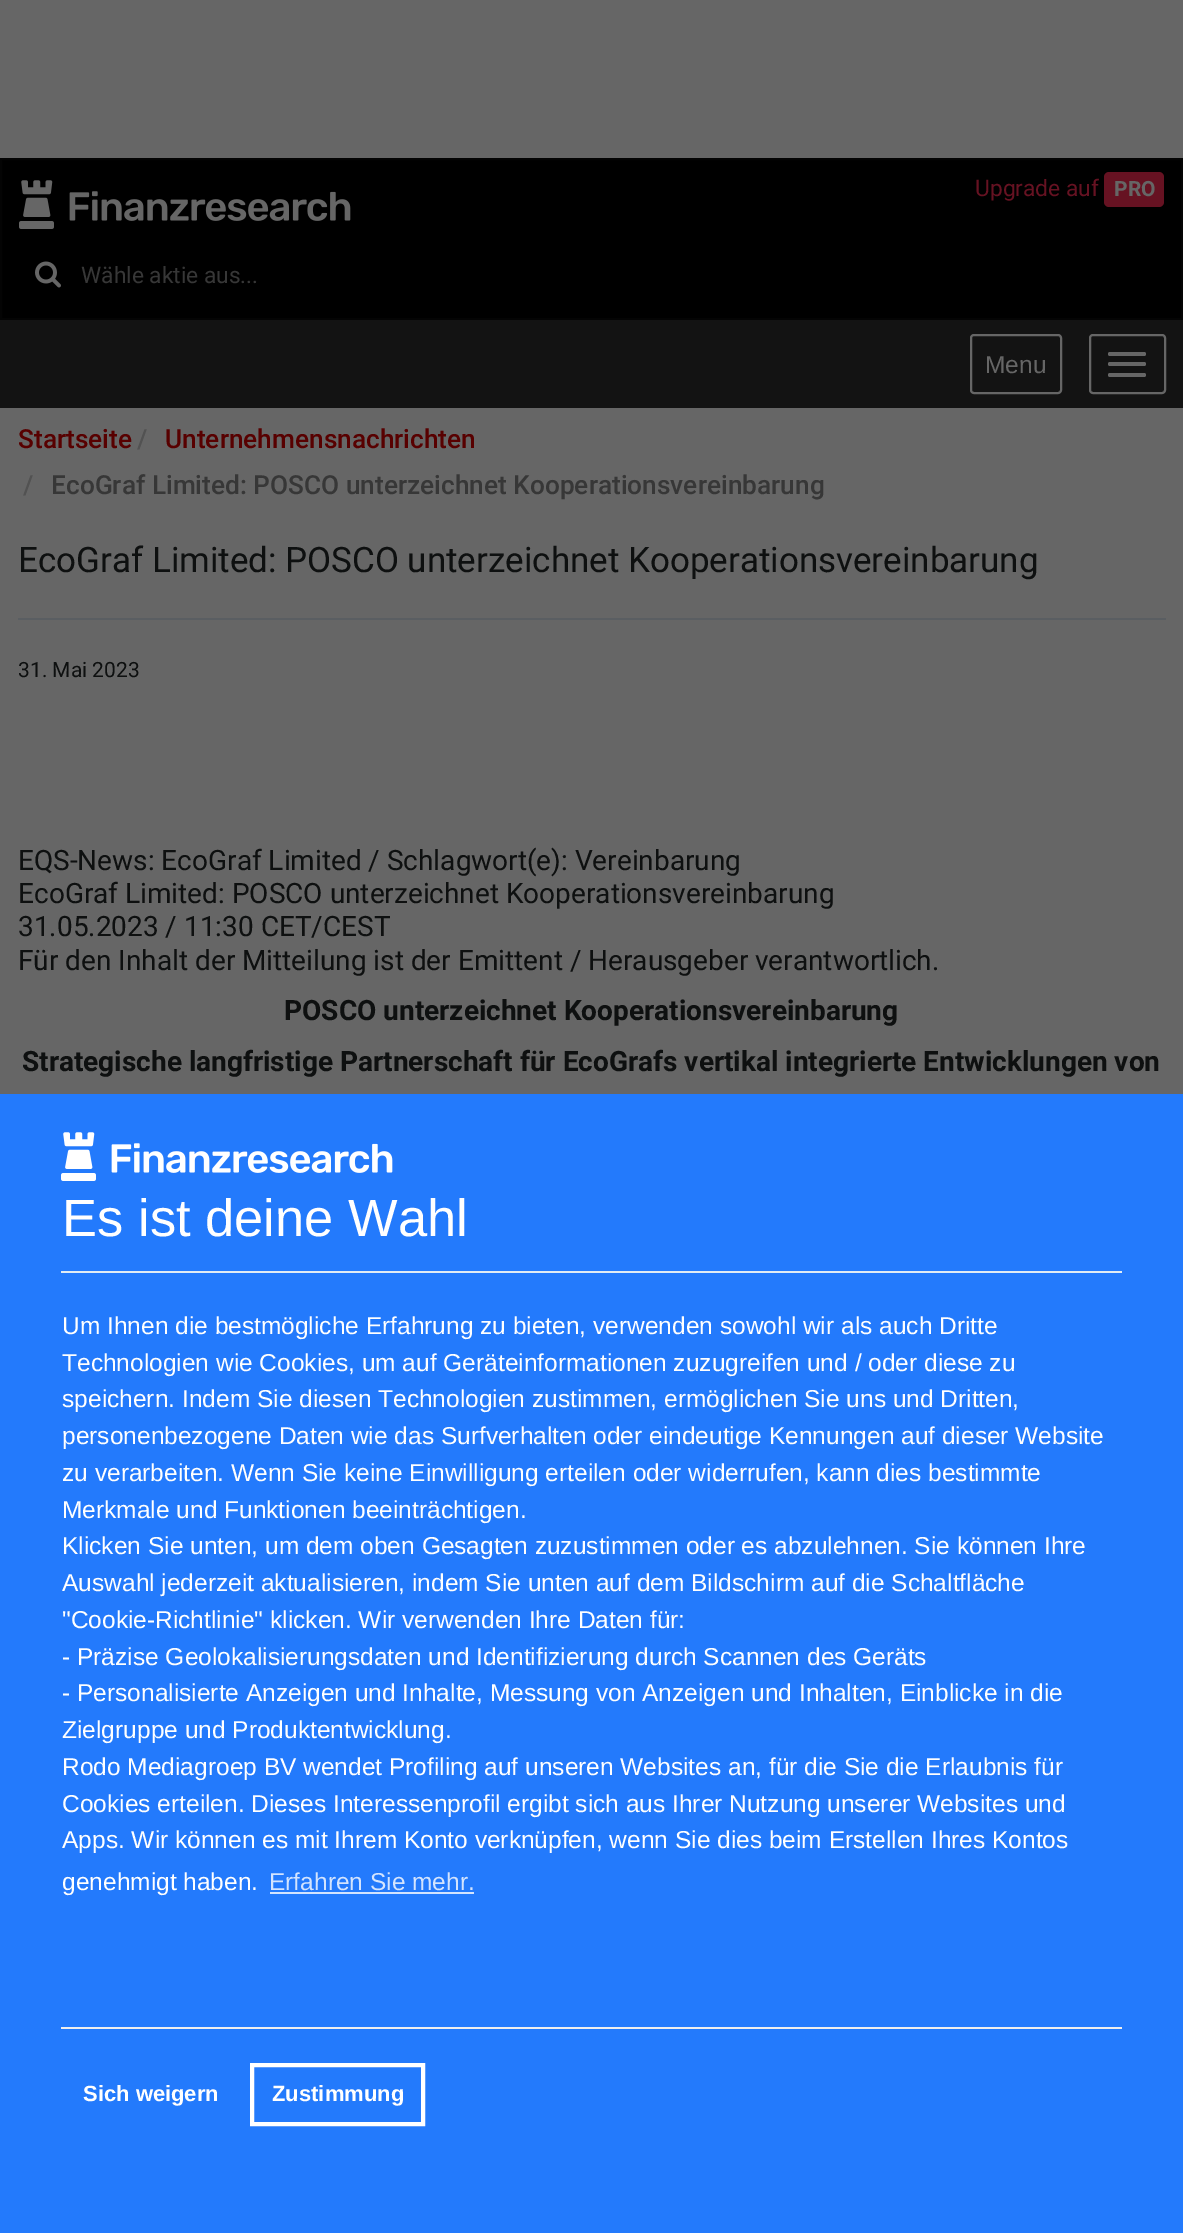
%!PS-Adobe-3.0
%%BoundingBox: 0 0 1183 2233
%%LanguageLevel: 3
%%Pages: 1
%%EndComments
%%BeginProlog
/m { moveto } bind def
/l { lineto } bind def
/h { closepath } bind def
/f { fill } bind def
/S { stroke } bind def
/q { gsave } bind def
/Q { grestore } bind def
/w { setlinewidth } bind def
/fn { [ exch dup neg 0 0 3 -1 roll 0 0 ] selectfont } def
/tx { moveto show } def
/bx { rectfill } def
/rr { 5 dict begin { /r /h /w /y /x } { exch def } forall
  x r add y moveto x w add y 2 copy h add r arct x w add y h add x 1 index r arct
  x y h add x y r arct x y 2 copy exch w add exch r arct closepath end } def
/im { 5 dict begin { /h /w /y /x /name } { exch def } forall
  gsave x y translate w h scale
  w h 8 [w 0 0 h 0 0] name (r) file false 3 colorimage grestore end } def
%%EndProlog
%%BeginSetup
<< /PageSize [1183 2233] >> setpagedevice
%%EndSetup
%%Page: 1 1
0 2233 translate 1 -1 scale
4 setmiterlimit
0.4 setgray
0 0 1183 2233 bx
0 setgray
1 159 m 1182 159 l 1182 319 l 1 319 l h q f Q
0.016 setgray
2 w
S
/Roboto-Regular 22.75 fn
0.4 0.071 0.133 setrgbcolor
(Upgrade auf) 975 196 tx
1104 172 60 35 5 rr f
/Roboto-Bold 21 fn
0.4 setgray
(PRO) 1114 196 tx
(image0.raw) 19 180 332 49 im
(image1.raw) 35 261 26 27 im
/Roboto-Regular 22.75 fn
0.216 setgray
(Wähle aktie aus...) 81 283 tx
0.075 setgray
0 320 1183 88 bx
0.4 setgray
971 335 90 58 3 rr S
/LiberationSans-Regular 24.5 fn
(Menu) 985 373 tx
1090 335 75 58 3 rr S
1108 352 38 4 2 rr f
1108 362 38 4 2 rr f
1108 373 38 4 2 rr f
/Roboto-Medium 26.25 fn
0.345 0 0 setrgbcolor
(Startseite) 18 448 tx
0.322 setgray
(/) 137 448 tx
0.345 0 0 setrgbcolor
(Unternehmensnachrichten) 165 448 tx
0.322 setgray
(/) 23 494 tx
0.216 setgray
(EcoGraf Limited: POSCO unterzeichnet Kooperationsvereinbarung) 51 494 tx
0.353 0.369 0.384 setrgbcolor
18 618 1148 2 bx
/Roboto-Regular 35 fn
0.055 0.063 0.063 setrgbcolor
(EcoGraf Limited: POSCO unterzeichnet Kooperationsvereinbarung) 18 572 tx
/Roboto-Regular 21 fn
(31. Mai 2023) 18 677 tx
/Roboto-Regular 28 fn
(EQS-News: EcoGraf Limited / Schlagwort\(e\): Vereinbarung) 18 870 tx
(EcoGraf Limited: POSCO unterzeichnet Kooperationsvereinbarung) 18 903 tx
(31.05.2023 / 11:30 CET/CEST) 18 936 tx
(Für den Inhalt der Mitteilung ist der Emittent / Herausgeber verantwortlich.) 18 970 tx
/Roboto-Bold 28 fn
(POSCO unterzeichnet Kooperationsvereinbarung) 284 1020 tx
(Strategische langfristige Partnerschaft für EcoGrafs vertikal integrierte Entwicklungen von) 22 1071 tx
0.137 0.478 0.988 setrgbcolor
0 1094 1183 1139 bx
(image2.raw) 61 1132 332 49 im
0.882 0.925 0.957 setrgbcolor
61 1271 1061 2 bx
/LiberationSans-Regular 52.5 fn
1 setgray
(Es ist deine Wahl) 62 1236 tx
/LiberationSans-Regular 24.5 fn
(Um Ihnen die bestmögliche Erfahrung zu bieten, verwenden sowohl wir als auch Dritte) 62 1334 tx
(Technologien wie Cookies, um auf Geräteinformationen zuzugreifen und / oder diese zu) 62 1371 tx
(speichern. Indem Sie diesen Technologien zustimmen, ermöglichen Sie uns und Dritten,) 62 1407 tx
(personenbezogene Daten wie das Surfverhalten oder eindeutige Kennungen auf dieser Website) 62 1444 tx
(zu verarbeiten. Wenn Sie keine Einwilligung erteilen oder widerrufen, kann dies bestimmte) 62 1481 tx
(Merkmale und Funktionen beeinträchtigen.) 62 1518 tx
(Klicken Sie unten, um dem oben Gesagten zuzustimmen oder es abzulehnen. Sie können Ihre) 62 1554 tx
(Auswahl jederzeit aktualisieren, indem Sie unten auf dem Bildschirm auf die Schaltfläche) 62 1591 tx
("Cookie-Richtlinie" klicken. Wir verwenden Ihre Daten für:) 62 1628 tx
(- Präzise Geolokalisierungsdaten und Identifizierung durch Scannen des Geräts) 62 1665 tx
(- Personalisierte Anzeigen und Inhalte, Messung von Anzeigen und Inhalten, Einblicke in die) 62 1701 tx
(Zielgruppe und Produktentwicklung.) 62 1738 tx
(Rodo Mediagroep BV wendet Profiling auf unseren Websites an, für die Sie die Erlaubnis für) 62 1775 tx
(Cookies erteilen. Dieses Interessenprofil ergibt sich aus Ihrer Nutzung unserer Websites und) 62 1812 tx
(Apps. Wir können es mit Ihrem Konto verknüpfen, wenn Sie dies beim Erstellen Ihres Kontos) 62 1848 tx
(genehmigt haben.) 62 1890 tx
0.827 0.894 0.996 setrgbcolor
(Erfahren Sie mehr.) 269 1890 tx
270 1892 204 2 bx
0.933 setgray
61 2027 1061 2 bx
/LiberationSans-Bold 22 fn
1 setgray
(Sich weigern) 83 2101 tx
4 w
252 2065 171 59 rectstroke
(Zustimmung) 272 2101 tx
showpage
%%EOF
